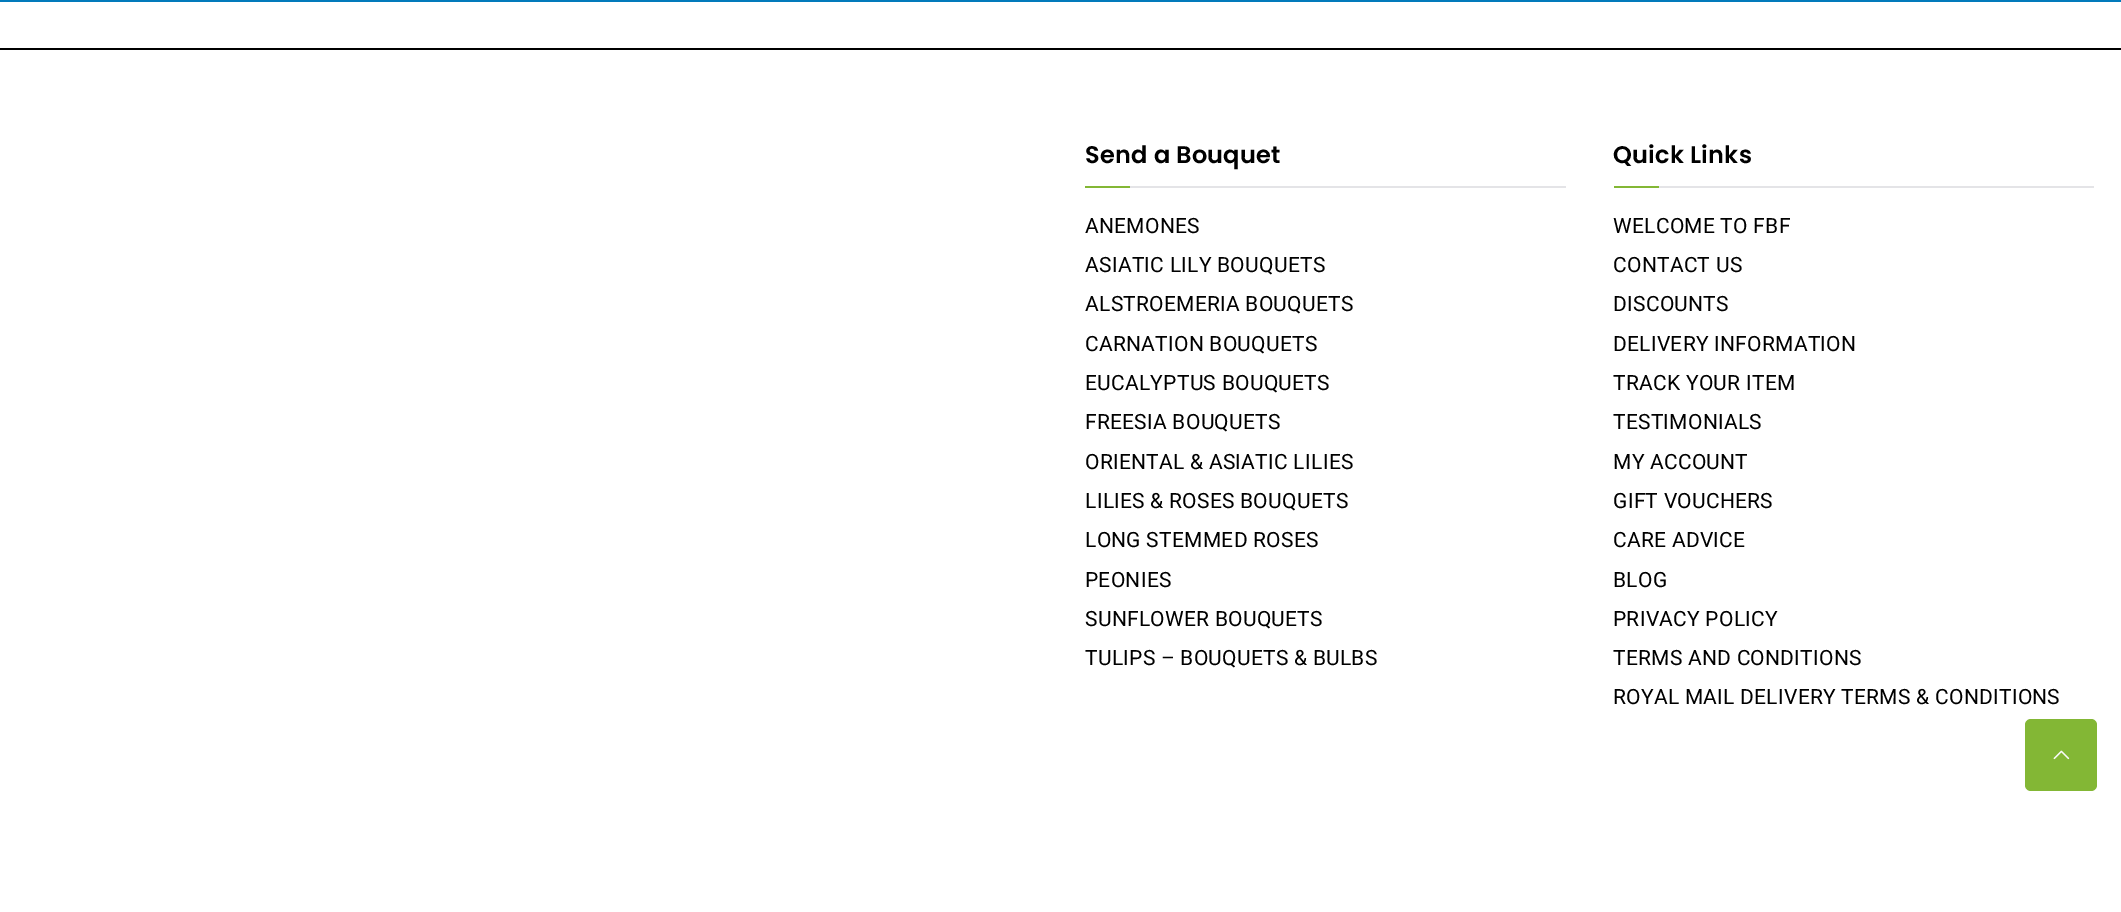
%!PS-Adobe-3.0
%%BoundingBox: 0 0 2121 912
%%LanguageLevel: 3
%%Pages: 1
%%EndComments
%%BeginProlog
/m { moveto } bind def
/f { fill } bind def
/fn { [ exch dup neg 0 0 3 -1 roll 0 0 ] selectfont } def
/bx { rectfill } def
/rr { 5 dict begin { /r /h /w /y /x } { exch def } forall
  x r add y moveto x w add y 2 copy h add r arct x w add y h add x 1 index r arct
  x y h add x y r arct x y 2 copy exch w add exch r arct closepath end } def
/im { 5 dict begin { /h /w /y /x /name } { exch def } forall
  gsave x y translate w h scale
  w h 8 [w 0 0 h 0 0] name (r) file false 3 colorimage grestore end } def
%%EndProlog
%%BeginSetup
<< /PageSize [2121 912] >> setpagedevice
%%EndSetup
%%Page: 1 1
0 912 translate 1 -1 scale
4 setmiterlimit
1 setgray
0 0 2121 912 bx
0.008 0.478 0.733 setrgbcolor
0 0 2121 2 bx
0 setgray
0 48 2121 2 bx
0.894 0.894 0.906 setrgbcolor
1130 186 436 2 bx
/Poppins-SemiBold 24 fn
0 setgray
1085 163 m 0.25 0 (Send a Bouquet) ashow
0.514 0.718 0.208 setrgbcolor
1085 186 45 2 bx
/Roboto-Regular 21 fn
0 setgray
1085 233 m 0.25 0 (ANEMONES) ashow
1085 272 m 0.25 0 (ASIATIC LILY BOUQUETS) ashow
1085 311 m 0.25 0 (ALSTROEMERIA BOUQUETS) ashow
1085 351 m 0.25 0 (CARNATION BOUQUETS) ashow
1085 390 m 0.25 0 (EUCALYPTUS BOUQUETS) ashow
1085 429 m 0.25 0 (FREESIA BOUQUETS) ashow
1085 469 m 0.25 0 (ORIENTAL & ASIATIC LILIES) ashow
1085 508 m 0.25 0 (LILIES & ROSES BOUQUETS) ashow
1085 547 m 0.25 0 (LONG STEMMED ROSES) ashow
1085 587 m 0.25 0 (PEONIES) ashow
1085 626 m 0.25 0 (SUNFLOWER BOUQUETS) ashow
1085 665 m 0.25 0 (TULIPS – BOUQUETS & BULBS) ashow
0.894 0.894 0.906 setrgbcolor
1659 186 435 2 bx
/Poppins-SemiBold 24 fn
0 setgray
1613 163 m 0.25 0 (Quick Links) ashow
0.514 0.718 0.208 setrgbcolor
1614 186 45 2 bx
/Roboto-Regular 21 fn
0 setgray
1613 233 m 0.25 0 (WELCOME TO FBF) ashow
1613 272 m 0.25 0 (CONTACT US) ashow
1613 311 m 0.25 0 (DISCOUNTS) ashow
1613 351 m 0.25 0 (DELIVERY INFORMATION) ashow
1613 390 m 0.25 0 (TRACK YOUR ITEM) ashow
1613 429 m 0.25 0 (TESTIMONIALS) ashow
1613 469 m 0.25 0 (MY ACCOUNT) ashow
1613 508 m 0.25 0 (GIFT VOUCHERS) ashow
1613 547 m 0.25 0 (CARE ADVICE) ashow
1613 587 m 0.25 0 (BLOG) ashow
1613 626 m 0.25 0 (PRIVACY POLICY) ashow
1613 665 m 0.25 0 (TERMS AND CONDITIONS) ashow
1613 704 m 0.25 0 (ROYAL MAIL DELIVERY TERMS & CONDITIONS) ashow
0.514 0.718 0.208 setrgbcolor
2025 719 72 72 6 rr f
(image0.raw) 2053 750 17 10 im
showpage
%%EOF
